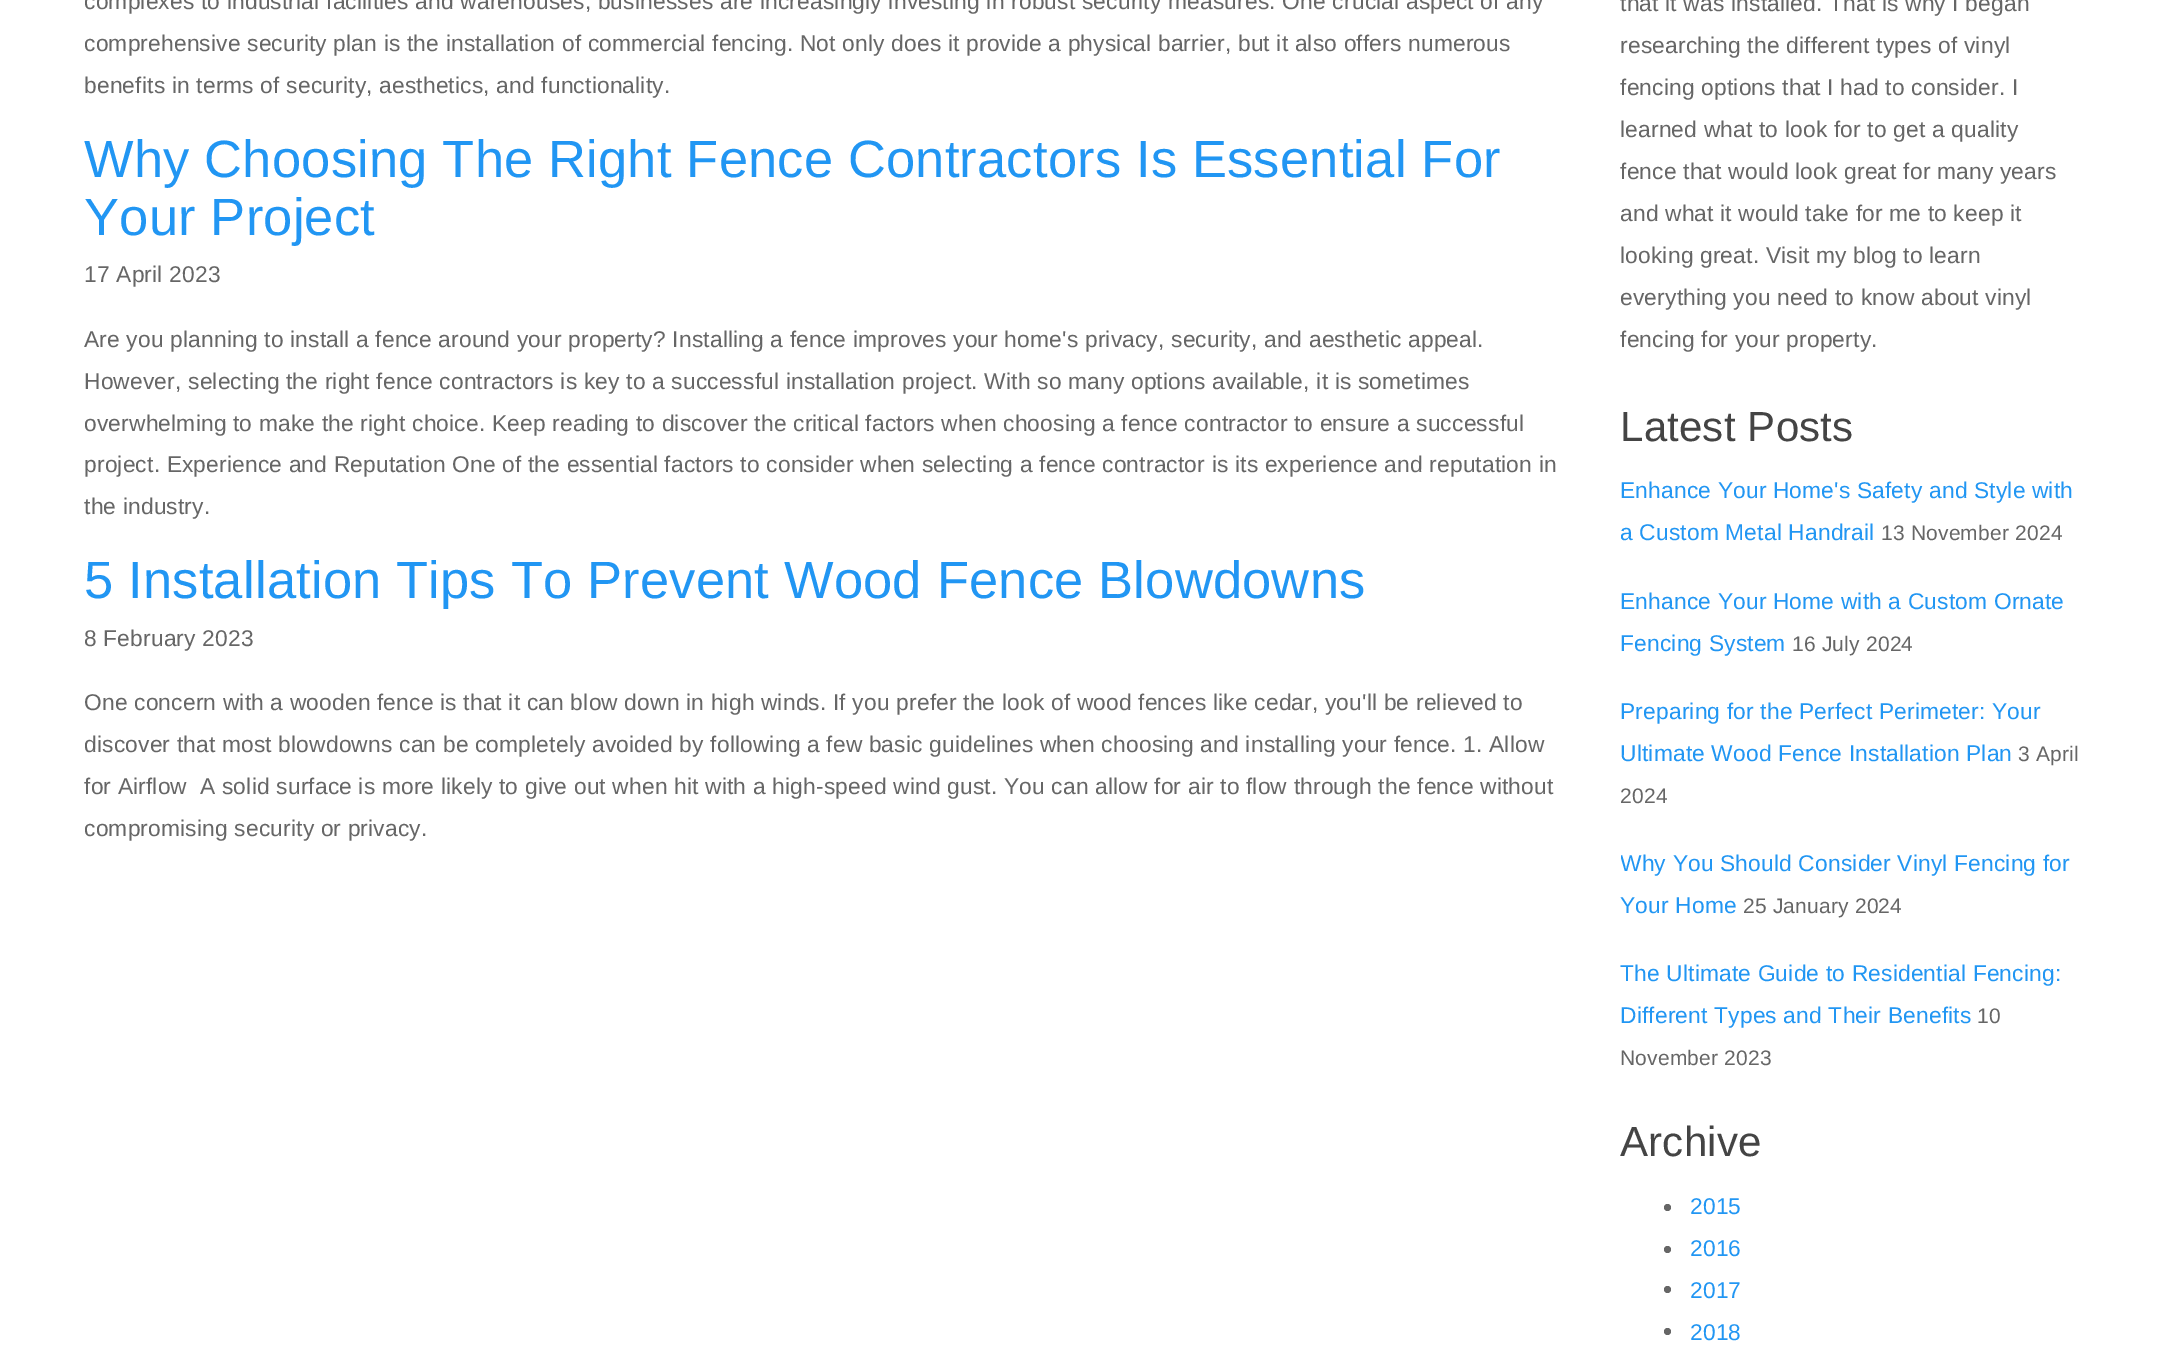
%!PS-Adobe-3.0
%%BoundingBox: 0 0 2163 1351
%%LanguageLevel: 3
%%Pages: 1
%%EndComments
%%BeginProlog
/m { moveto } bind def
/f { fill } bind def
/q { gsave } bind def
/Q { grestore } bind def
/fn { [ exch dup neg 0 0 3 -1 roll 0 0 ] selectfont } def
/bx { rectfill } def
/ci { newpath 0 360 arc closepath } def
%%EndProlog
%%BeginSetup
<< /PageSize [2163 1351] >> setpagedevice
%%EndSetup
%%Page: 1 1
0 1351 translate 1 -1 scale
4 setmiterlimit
1 setgray
0 0 2163 1351 bx
/Arimo-Regular 22.75 fn
0.4 setgray
84 9 m 0.18 0 (complexes to industrial facilities and warehouses, businesses are increasingly investing in robust security measures. One crucial aspect of any) ashow
84 51 m 0.18 0 (comprehensive security plan is the installation of commercial fencing. Not only does it provide a physical barrier, but it also offers numerous) ashow
84 93 m 0.18 0 (benefits in terms of security, aesthetics, and functionality.) ashow
/Arimo-Regular 52.5 fn
0.129 0.588 0.953 setrgbcolor
84 177 m 0.18 0 (Why Choosing The Right Fence Contractors Is Essential For) ashow
84 235 m 0.18 0 (Your Project) ashow
/Arimo-Regular 22.75 fn
0.4 setgray
84 282 m 0.18 0 (17 April 2023) ashow
84 347 m 0.18 0 (Are you planning to install a fence around your property? Installing a fence improves your home's privacy, security, and aesthetic appeal.) ashow
84 389 m 0.18 0 (However, selecting the right fence contractors is key to a successful installation project. With so many options available, it is sometimes) ashow
84 431 m 0.18 0 (overwhelming to make the right choice. Keep reading to discover the critical factors when choosing a fence contractor to ensure a successful) ashow
84 472 m 0.18 0 (project. Experience and Reputation One of the essential factors to consider when selecting a fence contractor is its experience and reputation in) ashow
84 514 m 0.18 0 (the industry.) ashow
/Arimo-Regular 52.5 fn
0.129 0.588 0.953 setrgbcolor
84 598 m 0.18 0 (5 Installation Tips To Prevent Wood Fence Blowdowns) ashow
/Arimo-Regular 22.75 fn
0.4 setgray
84 646 m 0.18 0 (8 February 2023) ashow
84 710 m 0.18 0 (One concern with a wooden fence is that it can blow down in high winds. If you prefer the look of wood fences like cedar, you'll be relieved to) ashow
84 752 m 0.18 0 (discover that most blowdowns can be completely avoided by following a few basic guidelines when choosing and installing your fence. 1. Allow) ashow
84 794 m 0.18 0 (for Airflow  A solid surface is more likely to give out when hit with a high-speed wind gust. You can allow for air to flow through the fence without) ashow
84 836 m 0.18 0 (compromising security or privacy.) ashow
1620 11 m 0.18 0 (that it was installed. That is why I began) ashow
1620 53 m 0.18 0 (researching the different types of vinyl) ashow
1620 95 m 0.18 0 (fencing options that I had to consider. I) ashow
1620 137 m 0.18 0 (learned what to look for to get a quality) ashow
1620 179 m 0.18 0 (fence that would look great for many years) ashow
1620 221 m 0.18 0 (and what it would take for me to keep it) ashow
1620 263 m 0.18 0 (looking great. Visit my blog to learn) ashow
1620 305 m 0.18 0 (everything you need to know about vinyl) ashow
1620 347 m 0.18 0 (fencing for your property.) ashow
/Arimo-Regular 42 fn
0.267 setgray
1620 441 m 0.18 0 (Latest Posts) ashow
/Arimo-Regular 22.75 fn
0.129 0.588 0.953 setrgbcolor
1620 498 m 0.18 0 (Enhance Your Home's Safety and Style with) ashow
q
1621 471 458 84 rectclip
1620 540 m 0.18 0 (a Custom Metal Handrail) ashow
Q
/Arimo-Regular 21 fn
0.4 setgray
1881 540 m 0.18 0 (13 November 2024) ashow
/Arimo-Regular 22.75 fn
0.129 0.588 0.953 setrgbcolor
1620 609 m 0.18 0 (Enhance Your Home with a Custom Ornate) ashow
1620 651 m 0.18 0 (Fencing System) ashow
/Arimo-Regular 21 fn
0.4 setgray
1792 651 m 0.18 0 (16 July 2024) ashow
/Arimo-Regular 22.75 fn
0.129 0.588 0.953 setrgbcolor
1620 719 m 0.18 0 (Preparing for the Perfect Perimeter: Your) ashow
1620 761 m 0.18 0 (Ultimate Wood Fence Installation Plan) ashow
/Arimo-Regular 21 fn
0.4 setgray
2018 761 m 0.18 0 (3 April) ashow
q
1621 691 458 126 rectclip
1620 803 m 0.18 0 (2024) ashow
Q
q
1621 844 458 84 rectclip
/Arimo-Regular 22.75 fn
0.129 0.588 0.953 setrgbcolor
1620 871 m 0.18 0 (Why You Should Consider Vinyl Fencing for) ashow
Q
/Arimo-Regular 22.75 fn
0.129 0.588 0.953 setrgbcolor
1620 913 m 0.18 0 (Your Home) ashow
/Arimo-Regular 21 fn
0.4 setgray
1743 913 m 0.18 0 (25 January 2024) ashow
/Arimo-Regular 22.75 fn
0.129 0.588 0.953 setrgbcolor
1620 981 m 0.18 0 (The Ultimate Guide to Residential Fencing:) ashow
1620 1023 m 0.18 0 (Different Types and Their Benefits) ashow
/Arimo-Regular 21 fn
0.4 setgray
1977 1023 m 0.18 0 (10) ashow
1620 1065 m 0.18 0 (November 2023) ashow
/Arimo-Regular 42 fn
0.267 setgray
1620 1156 m 0.18 0 (Archive) ashow
0.4 setgray
1667.5 1207.5 3.5 ci f
/Arimo-Regular 22.75 fn
0.129 0.588 0.953 setrgbcolor
1690 1214 m 0.18 0 (2015) ashow
0.4 setgray
1667.5 1249.5 3.5 ci f
0.129 0.588 0.953 setrgbcolor
1690 1256 m 0.18 0 (2016) ashow
0.4 setgray
1667.5 1289.5 3.5 ci f
0.129 0.588 0.953 setrgbcolor
1690 1298 m 0.18 0 (2017) ashow
0.4 setgray
1667.5 1331.5 3.5 ci f
0.129 0.588 0.953 setrgbcolor
1690 1340 m 0.18 0 (2018) ashow
showpage
%%EOF
